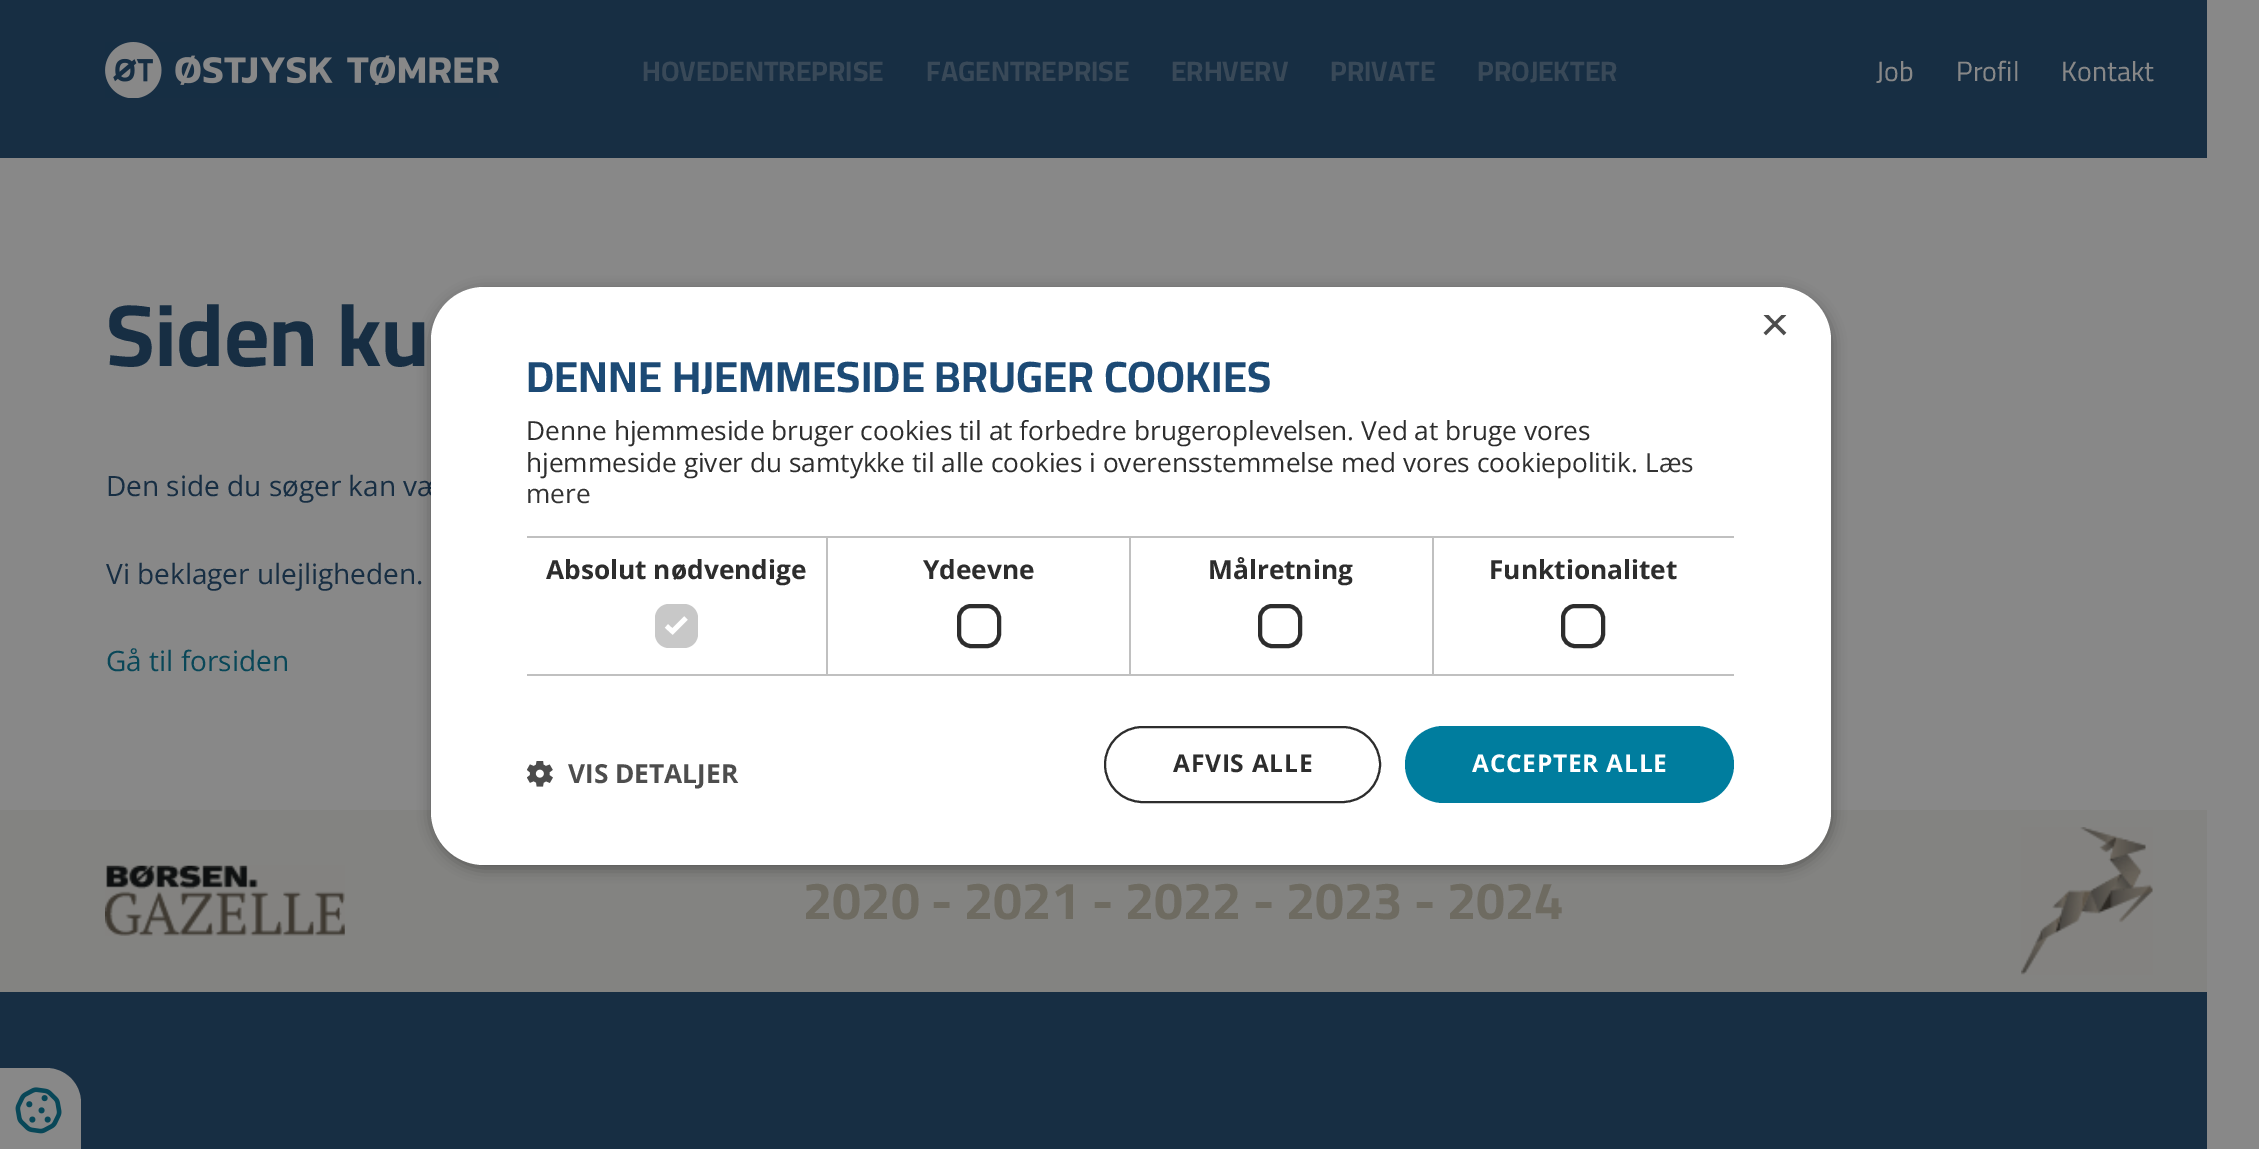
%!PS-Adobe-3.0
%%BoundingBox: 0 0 2259 1149
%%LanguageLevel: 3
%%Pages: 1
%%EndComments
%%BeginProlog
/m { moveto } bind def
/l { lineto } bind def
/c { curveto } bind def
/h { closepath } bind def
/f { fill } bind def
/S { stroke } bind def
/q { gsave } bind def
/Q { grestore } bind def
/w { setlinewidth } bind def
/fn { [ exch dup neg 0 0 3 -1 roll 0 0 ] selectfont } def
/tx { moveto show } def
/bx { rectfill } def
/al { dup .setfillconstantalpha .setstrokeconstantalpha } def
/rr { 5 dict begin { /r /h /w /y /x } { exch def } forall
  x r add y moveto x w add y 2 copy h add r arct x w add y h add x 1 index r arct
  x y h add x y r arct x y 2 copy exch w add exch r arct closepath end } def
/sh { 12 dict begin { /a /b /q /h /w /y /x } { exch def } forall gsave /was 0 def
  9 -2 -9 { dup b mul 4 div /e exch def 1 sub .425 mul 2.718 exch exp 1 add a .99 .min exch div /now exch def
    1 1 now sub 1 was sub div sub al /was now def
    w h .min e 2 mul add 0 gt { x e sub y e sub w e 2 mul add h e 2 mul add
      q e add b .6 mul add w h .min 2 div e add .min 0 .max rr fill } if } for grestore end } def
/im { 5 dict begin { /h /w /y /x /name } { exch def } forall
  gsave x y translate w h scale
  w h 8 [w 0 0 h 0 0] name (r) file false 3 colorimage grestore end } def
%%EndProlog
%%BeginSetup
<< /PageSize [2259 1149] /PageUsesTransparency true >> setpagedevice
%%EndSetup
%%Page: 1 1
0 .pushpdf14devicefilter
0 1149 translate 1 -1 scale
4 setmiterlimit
0.533 setgray
0 0 2259 1149 bx
0.09 0.18 0.263 setrgbcolor
0 0 2207 158 bx
(image0.raw) 105 42 394 56 im
/Cairo-Bold 28 fn
0.224 0.286 0.345 setrgbcolor
(HOVEDENTREPRISE) 642 81 tx
(FAGENTREPRISE) 926 81 tx
(ERHVERV) 1171 81 tx
(PRIVATE) 1330 81 tx
(PROJEKTER) 1477 81 tx
/Cairo-Regular 28 fn
0.533 setgray
(Job) 1876 81 tx
(Profil) 1956 81 tx
(Kontakt) 2061 81 tx
/Cairo-Bold 87.5 fn
0.09 0.18 0.263 setrgbcolor
(Siden ku) 106 366 tx
/OpenSans-Regular 28 fn
(Den side du søger kan væ) 106 496 tx
(Vi beklager ulejligheden.) 106 584 tx
0.035 0.278 0.345 setrgbcolor
(Gå til forsiden) 106 671 tx
0.514 0.514 0.506 setrgbcolor
0 810 2207 182 bx
(image1.raw) 105 865 240 71 im
/Cairo-Bold 52.5 fn
0.431 0.42 0.38 setrgbcolor
(2020 - 2021 - 2022 - 2023 - 2024) 803 919 tx
(image2.raw) 2021 827 132 148 im
0.09 0.18 0.263 setrgbcolor
0 992 2207 157 bx
0.533 setgray
0 1068 m 46 1068 l 65.5 1068 81 1083.5 81 1103 c 81 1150 l 0 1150 l h f
(image3.raw) 15 1087 47 47 im
0 setgray
432 291 1400 577 53 7 0.35 sh
1 setgray
431 287 1400 578 53 rr f
q
1761 315 26 26 rectclip
/LiberationSans-Regular 51 fn
0.302 setgray
(×) 1760 341 tx
Q
/Cairo-Bold 43.75 fn
0.11 0.29 0.459 setrgbcolor
(DENNE HJEMMESIDE BRUGER COOKIES) 526 392 tx
/OpenSans-Regular 26.25 fn
0.176 setgray
(Denne hjemmeside bruger cookies til at forbedre brugeroplevelsen. Ved at bruge vores) 526 440 tx
(hjemmeside giver du samtykke til alle cookies i overensstemmelse med vores cookiepolitik.) 526 472 tx
0.2 setgray
(Læs) 1645 472 tx
(mere) 526 503 tx
0.753 setgray
527 536 906 2 bx
826 536 2 140 bx
527 674 301 2 bx
/OpenSans-Bold 26.25 fn
0.176 setgray
(Absolut nødvendige) 546 579 tx
0.784 setgray
655 604 43 44 14 rr f
1 setgray
4.6 w
666.5 626 m 672.5 631.5 l 686 618 l S
0.753 setgray
1129 536 2 140 bx
828 674 303 2 bx
0.176 setgray
(Ydeevne) 923 579 tx
4 w
959 606 40 40 12 rr S
0.753 setgray
1432 536 2 140 bx
1131 674 603 2 bx
0.176 setgray
(Målretning) 1208 579 tx
1260 606 40 40 12 rr S
0.753 setgray
1433 536 301 2 bx
0.176 setgray
(Funktionalitet) 1489 579 tx
1563 606 40 40 12 rr S
(image4.raw) 527 761 26 26 im
0.302 setgray
(VIS DETALJER) 568 783 tx
0.176 setgray
2 w
1105 727 275 75 37.5 rr S
/OpenSans-Bold 24.5 fn
1173 772 m 0.75 0 (AFVIS ALLE) ashow
0 0.49 0.62 setrgbcolor
1405 726 329 77 38.5 rr f
1 setgray
1472 772 m 0.75 0 (ACCEPTER ALLE) ashow
.poppdf14devicefilter showpage
%%EOF
